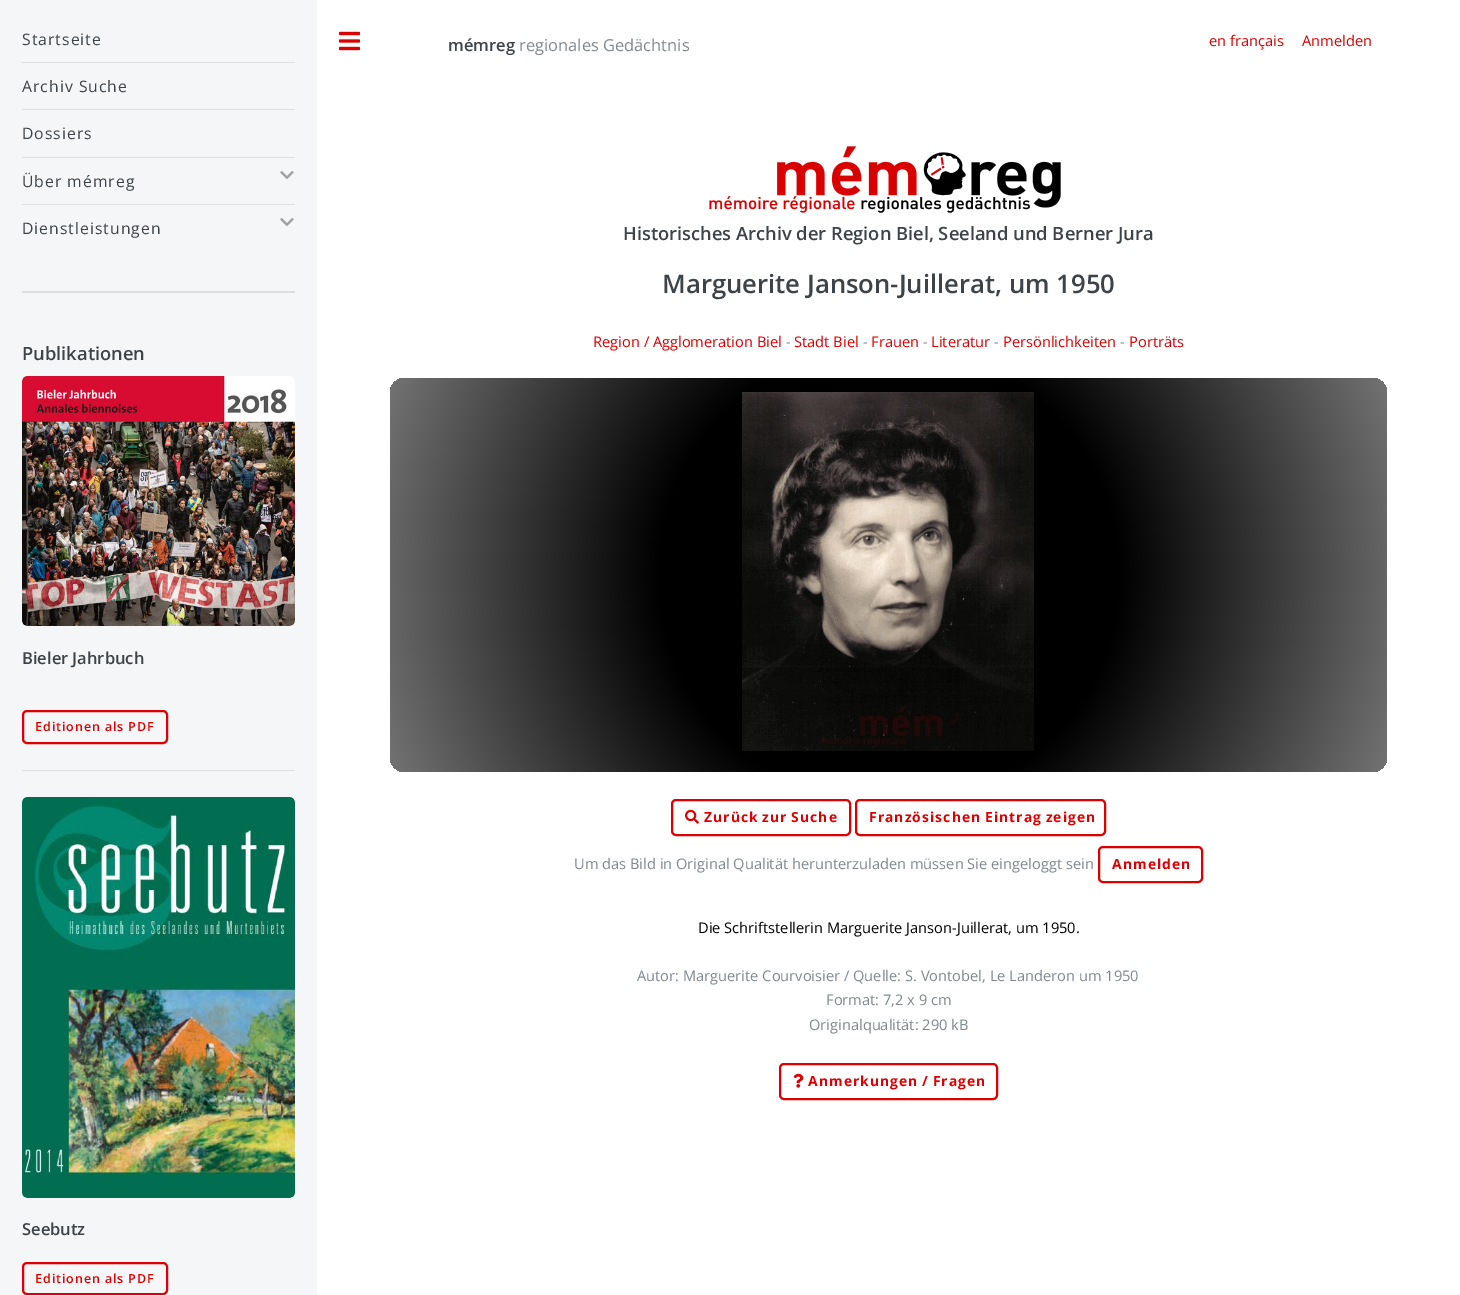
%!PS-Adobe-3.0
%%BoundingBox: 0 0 1460 1295
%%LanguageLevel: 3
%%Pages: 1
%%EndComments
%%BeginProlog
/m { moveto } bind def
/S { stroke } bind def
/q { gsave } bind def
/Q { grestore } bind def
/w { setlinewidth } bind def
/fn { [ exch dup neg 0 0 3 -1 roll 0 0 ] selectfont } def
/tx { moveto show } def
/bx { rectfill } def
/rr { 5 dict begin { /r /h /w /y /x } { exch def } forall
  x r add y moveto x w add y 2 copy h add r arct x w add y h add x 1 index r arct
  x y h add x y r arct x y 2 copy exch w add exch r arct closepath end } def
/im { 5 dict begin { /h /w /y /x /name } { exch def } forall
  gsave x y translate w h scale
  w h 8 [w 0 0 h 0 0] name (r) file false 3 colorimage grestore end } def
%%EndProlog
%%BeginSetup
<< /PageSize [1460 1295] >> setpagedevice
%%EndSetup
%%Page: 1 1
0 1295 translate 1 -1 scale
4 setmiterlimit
1 setgray
0 0 1460 1295 bx
0.961 0.965 0.969 setrgbcolor
0 0 317 1295 bx
0.859 0.875 0.882 setrgbcolor
22 291 273 2 bx
/OpenSans-Regular 15.75 fn
0.239 0.267 0.286 setrgbcolor
22 45 m 1 0 (Startseite) ashow
0.859 0.875 0.882 setrgbcolor
22 62 273 1 bx
0.239 0.267 0.286 setrgbcolor
22 92 m 1 0 (Archiv Suche) ashow
0.859 0.875 0.882 setrgbcolor
22 109 273 1 bx
0.239 0.267 0.286 setrgbcolor
22 139 m 1 0 (Dossiers) ashow
0.859 0.875 0.882 setrgbcolor
22 157 273 1 bx
0.239 0.267 0.286 setrgbcolor
22 187 m 1 0 (Über mémreg) ashow
(image0.raw) 280 171 14 8 im
0.859 0.875 0.882 setrgbcolor
22 204 273 1 bx
0.239 0.267 0.286 setrgbcolor
22 234 m 1 0 (Dienstleistungen) ashow
(image0.raw) 280 218 14 8 im
/OpenSans-SemiBold 18.3 fn
(Publikationen) 22 360 tx
(image1.raw) 22 376 273 250 im
/OpenSans-SemiBold 16.5 fn
(Bieler Jahrbuch) 22 664 tx
0.871 0 0 setrgbcolor
2 w
23 711 144 32 4 rr S
/OpenSans-SemiBold 12.5 fn
35 731 m 0.9 0 (Editionen als PDF) ashow
0.859 0.875 0.882 setrgbcolor
22 770 273 1 bx
(image2.raw) 22 797 273 401 im
/OpenSans-SemiBold 16.5 fn
0.239 0.267 0.286 setrgbcolor
(Seebutz) 22 1235 tx
0.871 0 0 setrgbcolor
23 1263 144 31 4 rr S
/OpenSans-SemiBold 12.5 fn
35 1283 m 0.9 0 (Editionen als PDF) ashow
(image3.raw) 339 31 21 20 im
/OpenSans-SemiBold 16.5 fn
0.239 0.267 0.286 setrgbcolor
(mémreg) 448 51 tx
/OpenSans-Regular 16.5 fn
0.498 0.533 0.561 setrgbcolor
(regionales Gedächtnis) 519 51 tx
/OpenSans-Regular 14.65 fn
0.871 0 0 setrgbcolor
(en français) 1209 46 tx
(Anmelden) 1302 46 tx
(image4.raw) 709 146 352 67 im
/OpenSans-SemiBold 18.3 fn
0.239 0.267 0.286 setrgbcolor
(Historisches Archiv der Region Biel, Seeland und Berner Jura) 623 240 tx
/OpenSans-SemiBold 25.7 fn
(Marguerite Janson-Juillerat, um 1950) 662 293 tx
/OpenSans-Regular 14.65 fn
0.871 0 0 setrgbcolor
(Region / Agglomeration Biel) 593 347 tx
0.498 0.533 0.561 setrgbcolor
(-) 786 347 tx
0.871 0 0 setrgbcolor
(Stadt Biel) 794 347 tx
0.498 0.533 0.561 setrgbcolor
(-) 863 347 tx
0.871 0 0 setrgbcolor
(Frauen) 871 347 tx
0.498 0.533 0.561 setrgbcolor
(-) 923 347 tx
0.871 0 0 setrgbcolor
(Literatur) 931 347 tx
0.498 0.533 0.561 setrgbcolor
(-) 994 347 tx
0.871 0 0 setrgbcolor
(Persönlichkeiten) 1003 347 tx
0.498 0.533 0.561 setrgbcolor
(-) 1120 347 tx
0.871 0 0 setrgbcolor
(Porträts) 1129 347 tx
q 390 378 997 394 15 rr clip newpath 889 575 translate 536 536 scale
<< /ShadingType 3 /ColorSpace /DeviceRGB /Coords [0 0 0 0 0 1] /Extend [true true] /Function << /FunctionType 3 /Domain [0 1] /Functions [<< /FunctionType 2 /Domain [0 1] /C0 [0 0 0] /C1 [0 0 0] /N 1 >> << /FunctionType 2 /Domain [0 1] /C0 [0 0 0] /C1 [0.451 0.451 0.451] /N 1 >>] /Bounds [0.43] /Encode [0 1 0 1] >> >> shfill Q
(image5.raw) 742 392 292 359 im
672 800 178 35 4 rr S
(image6.raw) 685 809 14 15 im
/OpenSans-Bold 13.9 fn
704 822 m -1 0 32 1.05 0 (Zurück zur Suche) awidthshow
856 800 249 35 4 rr S
869 822 m -1 0 32 1.05 0 (Französischen Eintrag zeigen) awidthshow
/OpenSans-Regular 14.65 fn
0.498 0.533 0.561 setrgbcolor
(Um das Bild in Original Qualität herunterzuladen müssen Sie eingeloggt sein) 574 869 tx
0.871 0 0 setrgbcolor
1099 847 103 35 4 rr S
/OpenSans-Bold 13.9 fn
1112 869 m 1.05 0 (Anmelden) ashow
/OpenSans-Regular 14.65 fn
0 setgray
(Die Schriftstellerin Marguerite Janson-Juillerat, um 1950.) 698 933 tx
0.498 0.533 0.561 setrgbcolor
(Autor: Marguerite Courvoisier / Quelle: S. Vontobel, Le Landeron um 1950) 637 981 tx
(Format: 7,2 x 9 cm) 826 1005 tx
(Originalqualität: 290 kB) 809 1030 tx
0.871 0 0 setrgbcolor
780 1064 217 35 4 rr S
(image7.raw) 793 1073 11 15 im
/OpenSans-Bold 13.9 fn
808 1086 m -1 0 32 1.05 0 (Anmerkungen / Fragen) awidthshow
showpage
%%EOF
